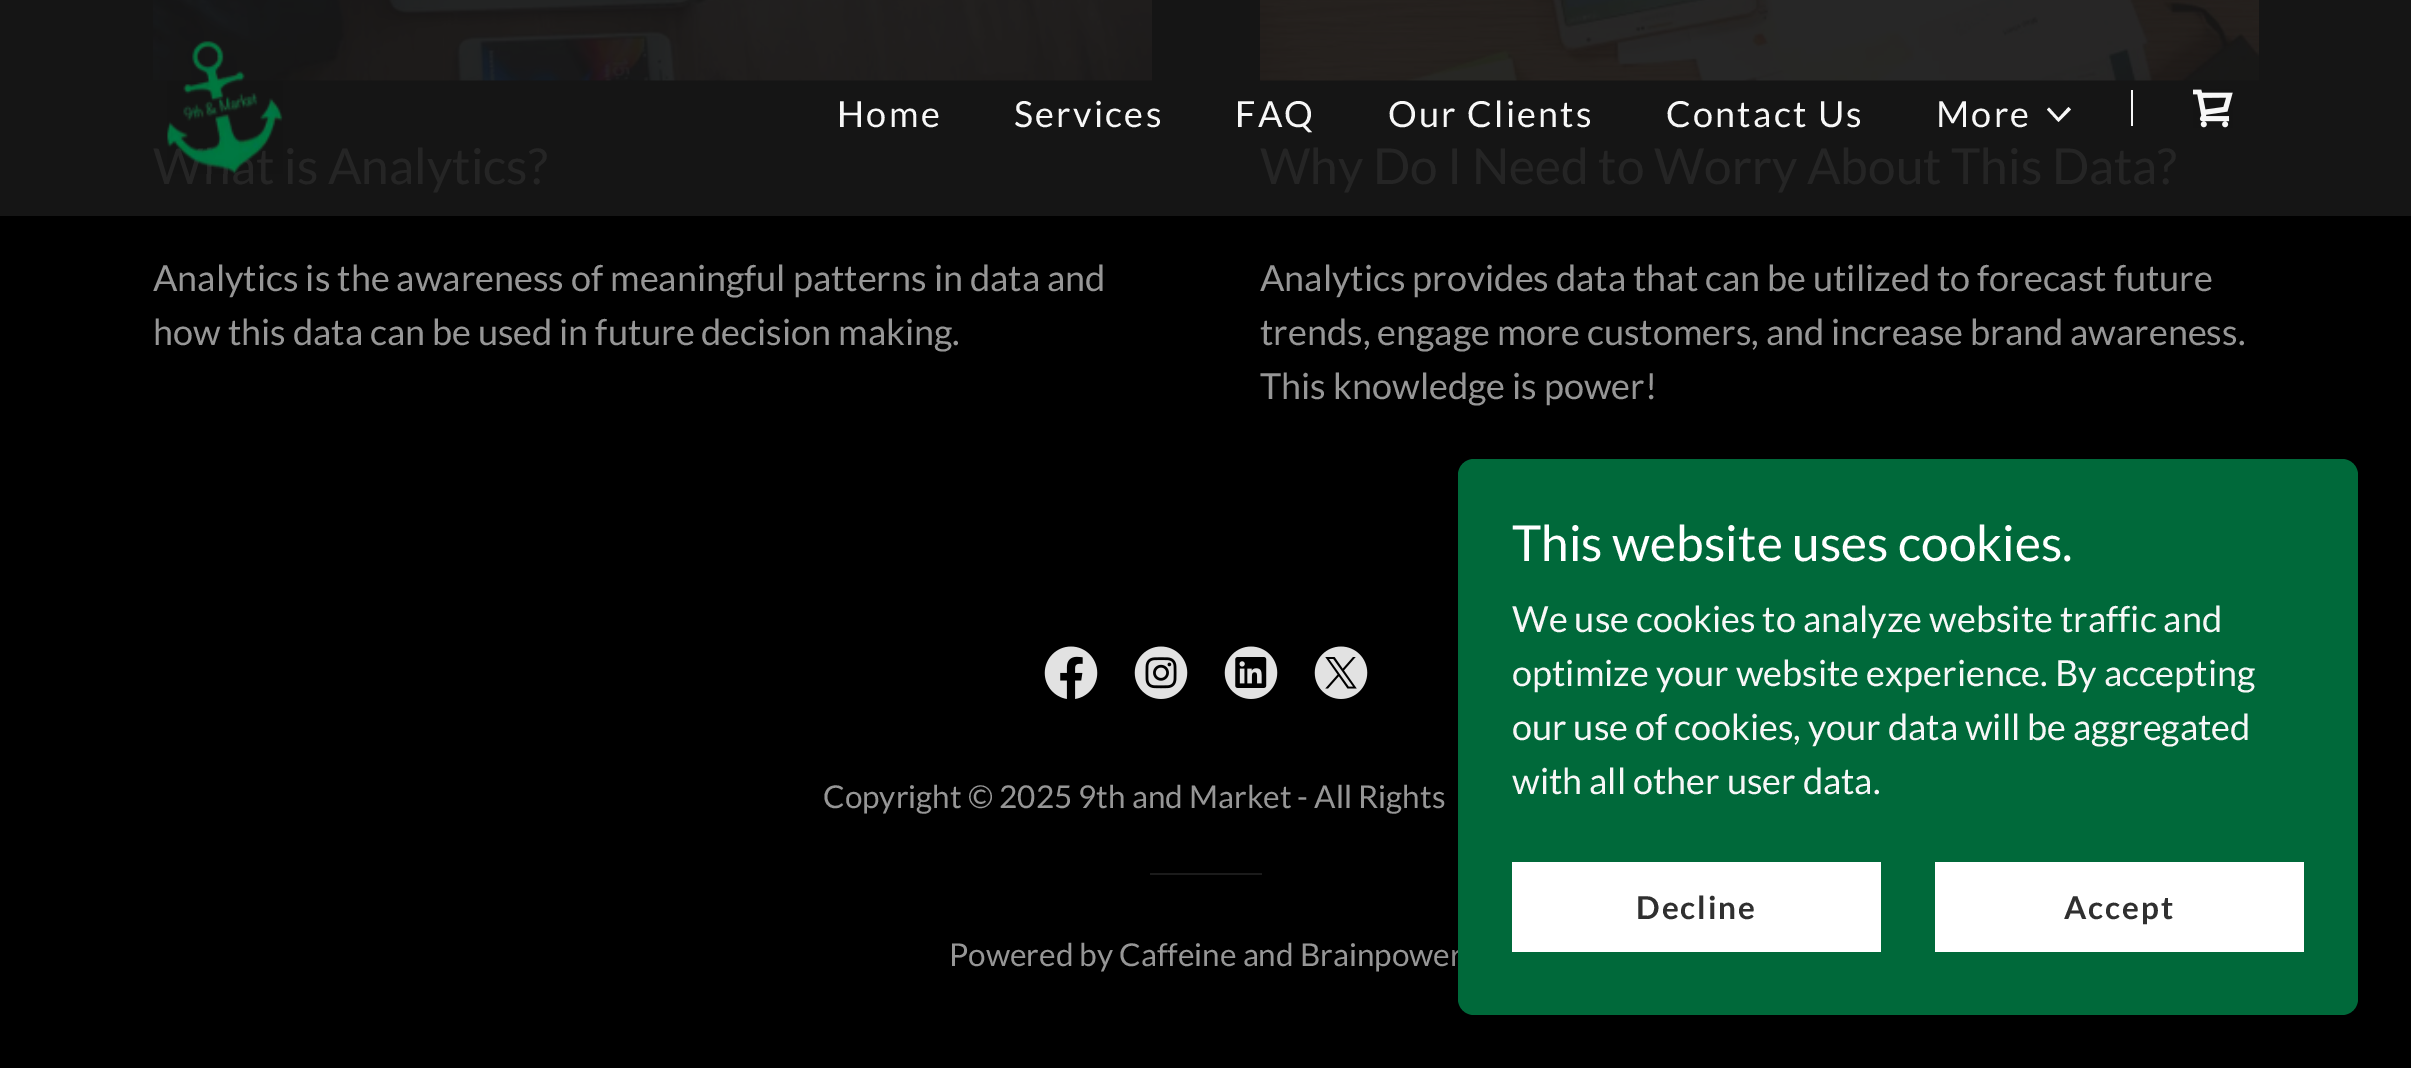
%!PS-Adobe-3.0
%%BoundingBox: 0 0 2411 1068
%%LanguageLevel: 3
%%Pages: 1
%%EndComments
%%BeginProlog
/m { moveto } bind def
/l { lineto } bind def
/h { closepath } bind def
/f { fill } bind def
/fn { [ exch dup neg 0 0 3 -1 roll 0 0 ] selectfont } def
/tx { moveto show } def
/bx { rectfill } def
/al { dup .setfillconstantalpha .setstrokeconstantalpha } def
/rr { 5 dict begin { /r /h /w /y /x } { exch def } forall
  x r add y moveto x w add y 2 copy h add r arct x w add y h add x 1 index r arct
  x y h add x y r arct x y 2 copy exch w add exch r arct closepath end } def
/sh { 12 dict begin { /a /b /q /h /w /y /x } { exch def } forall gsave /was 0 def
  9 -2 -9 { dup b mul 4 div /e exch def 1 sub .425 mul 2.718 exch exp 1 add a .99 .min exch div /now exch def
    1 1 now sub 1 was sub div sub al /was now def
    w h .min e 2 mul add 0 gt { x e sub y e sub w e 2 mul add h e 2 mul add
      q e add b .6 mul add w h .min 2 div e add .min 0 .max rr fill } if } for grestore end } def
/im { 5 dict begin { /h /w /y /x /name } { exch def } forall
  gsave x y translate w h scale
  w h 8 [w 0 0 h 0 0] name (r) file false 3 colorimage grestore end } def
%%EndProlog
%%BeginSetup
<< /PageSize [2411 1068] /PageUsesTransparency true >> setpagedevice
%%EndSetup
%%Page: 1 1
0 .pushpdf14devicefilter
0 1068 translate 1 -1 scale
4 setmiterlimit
0 setgray
0 0 2411 1068 bx
0.082 setgray
0 0 2411 216 bx
(image2.raw) 153 0 999 81 im
/Lato-Regular 49.5 fn
0.145 setgray
(What is Analytics?) 153 184 tx
(image0.raw) 167 41 116 133 im
/Lato-Regular 36 fn
0.969 setgray
837 127 m 2.25 0 (Home) ashow
1014 127 m 2.25 0 (Services) ashow
1235 127 m 2.25 0 (FAQ) ashow
1388 127 m 2.25 0 (Our Clients) ashow
1666 127 m 2.25 0 (Contact Us) ashow
1936 127 m 2.25 0 (More) ashow
2068.5 107 m 2058.5 118 l 2049 107.5 l 2047 109.5 l 2058.5 122 l 2071 109.5 l h eofill
2131 90 2 36 bx
(image1.raw) 2193 89 40 39 im
0.588 setgray
(Analytics is the awareness of meaningful patterns in data and) 153 291 tx
(how this data can be used in future decision making.) 153 345 tx
(image3.raw) 1260 0 999 81 im
/Lato-Regular 49.5 fn
0.145 setgray
(Why Do I Need to Worry About This Data?) 1260 184 tx
/Lato-Regular 36 fn
0.588 setgray
(Analytics provides data that can be utilized to forecast future) 1260 291 tx
(trends, engage more customers, and increase brand awareness.) 1260 345 tx
(This knowledge is power!) 1260 399 tx
(image4.raw) 1044 646 54 53 im
(image5.raw) 1134 646 54 53 im
(image6.raw) 1224 646 54 53 im
(image7.raw) 1314 646 54 53 im
/Lato-Regular 31.5 fn
(Copyright © 2025 9th and Market - All Rights) 823 808 tx
0.106 setgray
1150 873 112 2 bx
0.588 setgray
(Powered by Caffeine and Brainpower) 949 966 tx
0 setgray
1458 464 900 555 16 7 0.3 sh
0 0.412 0.227 setrgbcolor
1458 459 900 556 16 rr f
/Lato-Regular 49.5 fn
1 setgray
(This website uses cookies.) 1512 561 tx
/Lato-Regular 36 fn
0.969 setgray
(We use cookies to analyze website traffic and) 1512 632 tx
(optimize your website experience. By accepting) 1512 686 tx
(our use of cookies, your data will be aggregated) 1512 740 tx
(with all other user data.) 1512 794 tx
1 setgray
1512 862 369 90 bx
/Lato-Bold 31.5 fn
0.188 setgray
1636 919 m 2 0 (Decline) ashow
1 setgray
1935 862 369 90 bx
0.188 setgray
2064 919 m 2 0 (Accept) ashow
.poppdf14devicefilter showpage
%%EOF
